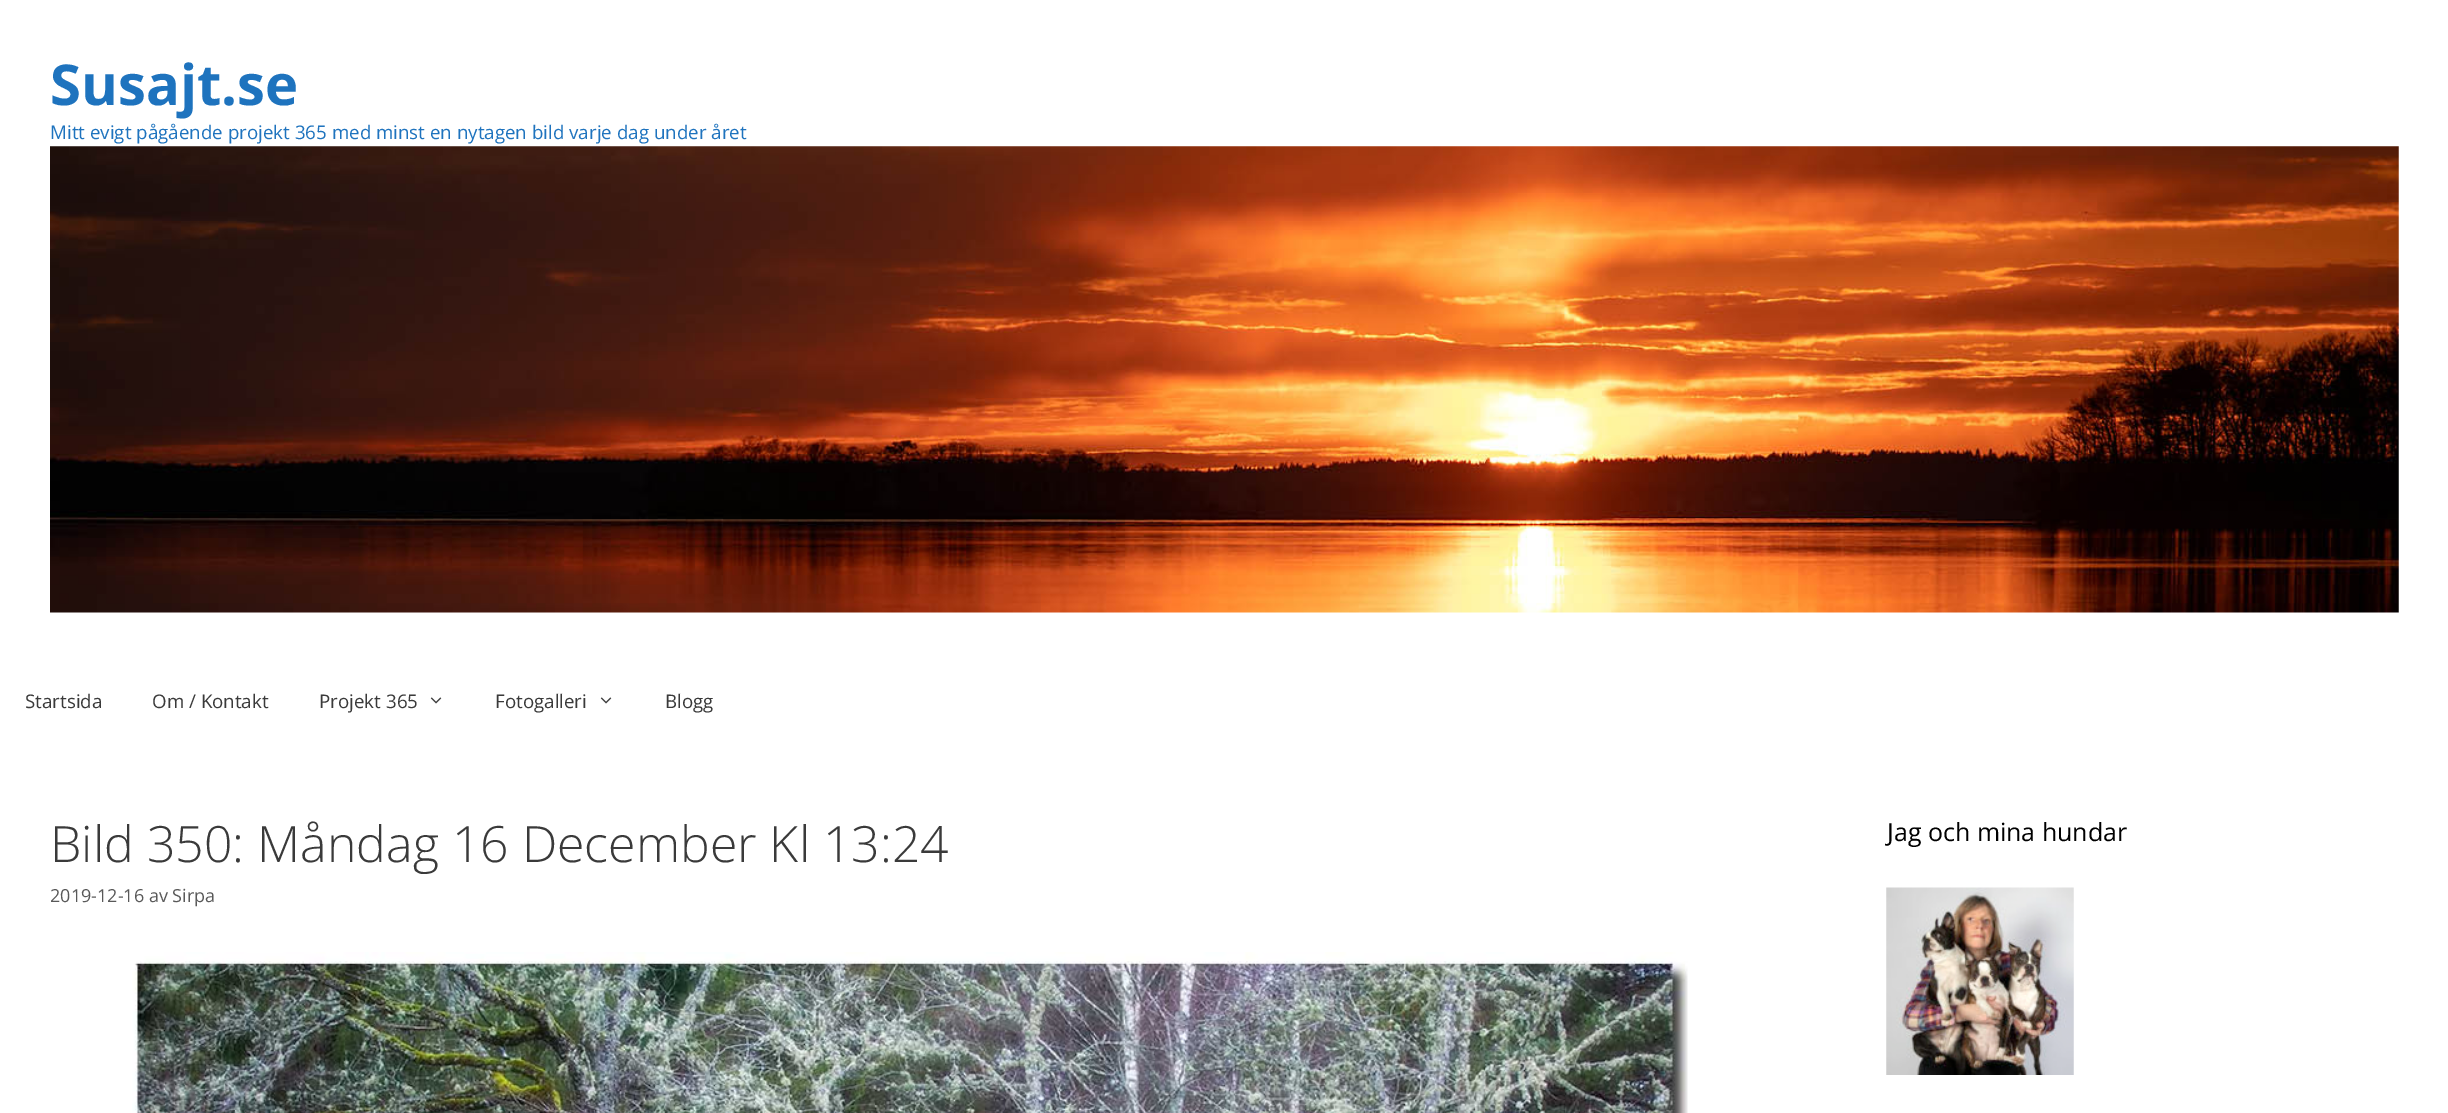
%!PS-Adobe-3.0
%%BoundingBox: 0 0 2448 1113
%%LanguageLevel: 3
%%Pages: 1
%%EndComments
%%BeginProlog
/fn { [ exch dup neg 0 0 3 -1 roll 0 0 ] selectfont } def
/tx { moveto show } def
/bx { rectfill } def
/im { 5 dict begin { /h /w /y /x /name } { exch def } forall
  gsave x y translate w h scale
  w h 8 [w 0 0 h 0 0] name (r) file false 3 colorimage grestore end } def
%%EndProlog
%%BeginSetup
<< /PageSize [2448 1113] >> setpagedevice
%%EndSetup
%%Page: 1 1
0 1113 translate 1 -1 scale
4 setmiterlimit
1 setgray
0 0 2448 1113 bx
/OpenSans-Bold 56.25 fn
0.118 0.451 0.745 setrgbcolor
(Susajt.se) 50 105 tx
/OpenSans-Regular 18.75 fn
(Mitt evigt pågående projekt 365 med minst en nytagen bild varje dag under året) 50 139 tx
(image0.raw) 50 146 2349 467 im
0.227 setgray
(Startsida) 25 708 tx
(Om / Kontakt) 152 708 tx
(Projekt 365) 319 708 tx
(image1.raw) 430 697 12 7 im
(Fotogalleri) 495 708 tx
(image1.raw) 600 697 12 7 im
(Blogg) 665 708 tx
/OpenSans-Light 50 fn
(Bild 350: Måndag 16 December Kl 13:24) 50 862 tx
/OpenSans-Regular 18 fn
0.349 setgray
(2019-12-16 av Sirpa) 50 902 tx
(image2.raw) 132 952 1556 161 im
/OpenSans-Regular 25 fn
0 setgray
(Jag och mina hundar) 1887 841 tx
(image3.raw) 1886 887 188 188 im
showpage
%%EOF
